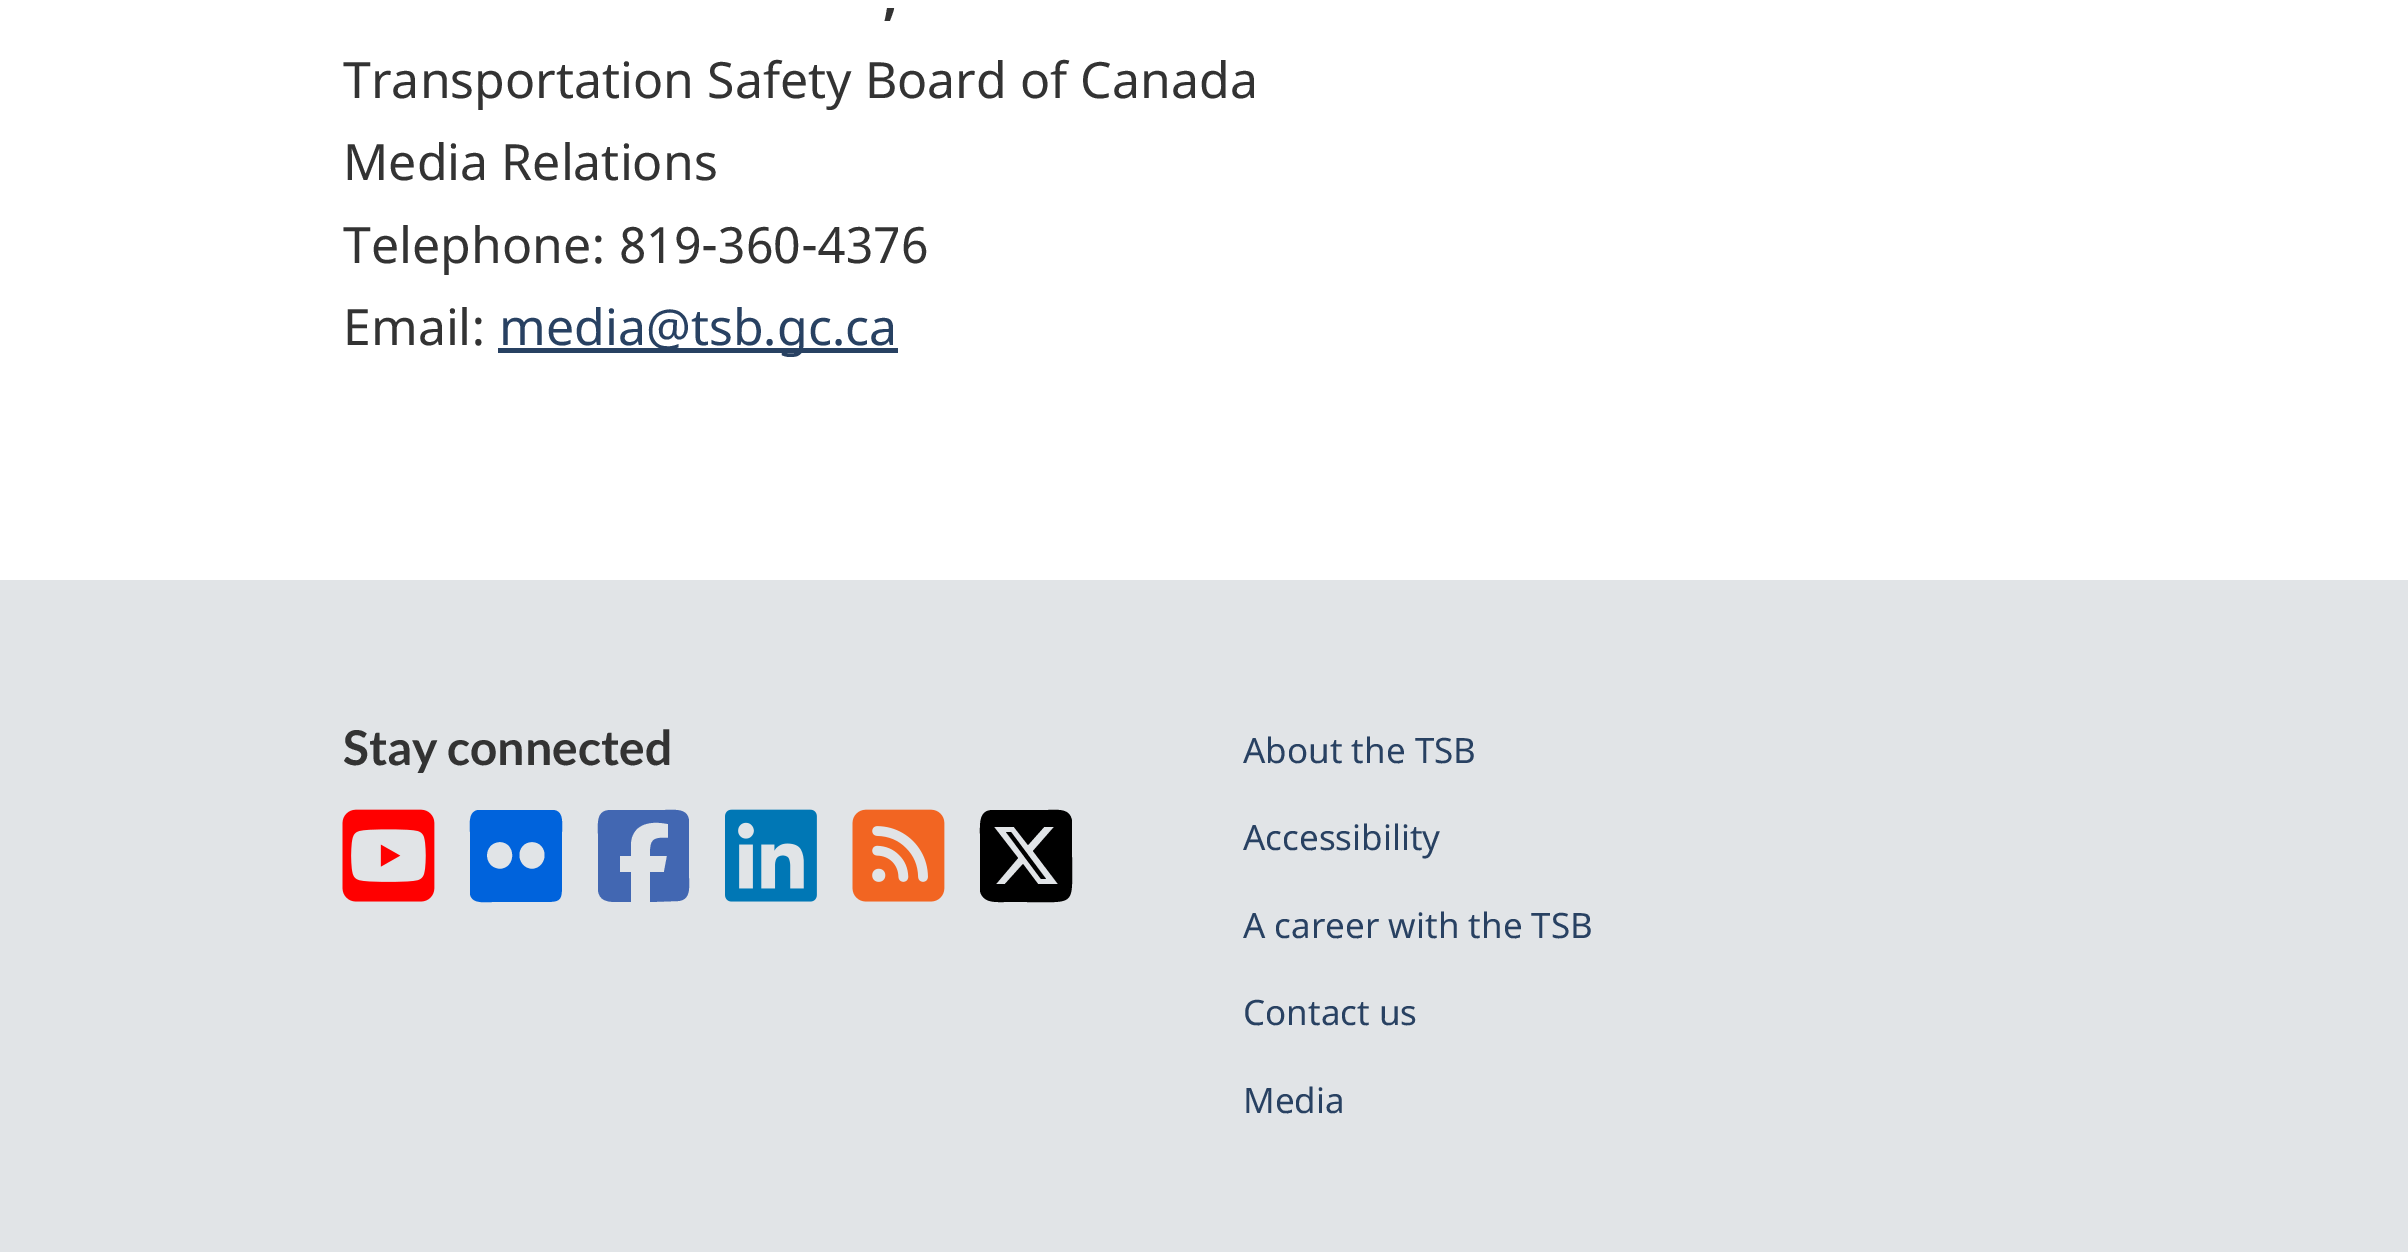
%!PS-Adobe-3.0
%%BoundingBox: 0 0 2408 1252
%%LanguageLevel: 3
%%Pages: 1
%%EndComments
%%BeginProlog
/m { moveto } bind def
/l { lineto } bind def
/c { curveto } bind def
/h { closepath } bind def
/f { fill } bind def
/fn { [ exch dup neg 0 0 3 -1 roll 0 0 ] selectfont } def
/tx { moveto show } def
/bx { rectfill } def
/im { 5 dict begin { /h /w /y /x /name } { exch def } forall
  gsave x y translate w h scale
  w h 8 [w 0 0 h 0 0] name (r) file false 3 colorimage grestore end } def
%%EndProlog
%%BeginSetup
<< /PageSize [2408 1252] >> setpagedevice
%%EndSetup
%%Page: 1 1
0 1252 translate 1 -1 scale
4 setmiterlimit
1 setgray
0 0 2408 1252 bx
/NotoSans-Bold 50 fn
0.2 setgray
(,) 883 15 tx
/NotoSans-Regular 50 fn
(Transportation Safety Board of Canada) 343 98 tx
(Media Relations) 343 180 tx
(Telephone: 819-360-4376) 343 263 tx
(Email:) 343 345 tx
0.157 0.255 0.384 setrgbcolor
498 348 400 5 bx
(media@tsb.gc.ca) 499 345 tx
0.882 0.894 0.906 setrgbcolor
0 580 2408 672 bx
/Lato-Bold 48 fn
0.2 setgray
(Stay connected) 343 765 tx
(image0.raw) 342 809 93 93 im
0 0.388 0.863 setrgbcolor
552 810 m 478 810 l 468 812 470 824 470 832 c 470 894 l 472 904 484 902 492 902 c 540 902 l 562 902 562 902 562 880 c 562 832 l 562 823 564 810 552 810 c h 500 869 m 482 868 483 842 500 842 c 516 842 517 868 500 869 c h 532 869 m 515 868 515 842 532 842 c 549 842 549 868 532 869 c h f
0.259 0.404 0.698 setrgbcolor
611 810 m 596 810 598 823 598 834 c 598 890 l 599 901 608 902 617 902 c 631 902 l 631 872 l 620 872 l 620 856 l 631 856 l 631 849 630 843 632 837 c 637 822 654 821 668 824 c 668 838 l 652 837 650 840 650 856 c 667 856 l 664 872 l 650 872 l 650 902 l 678 901 l 691 900 689 887 689 878 c 689 821 l 688 808 675 810 665 810 c h f
(image1.raw) 725 809 92 93 im
(image2.raw) 852 809 93 93 im
0 setgray
993 810 m 979 810 980 823 980 834 c 980 891 l 983 903 995 902 1004 902 c 1026 902 l 1077 902 1072 907 1072 856 c 1072 821 l 1070 808 1058 810 1048 810 c h 1054 827 m 1033 851 l 1054 827 l 1033 851 l 1058 884 l 1038 884 l 1023 864 l 1005 884 l 996 884 l 1018 858 l 994 827 l 1014 827 l 1028 845 l 1044 827 l h 1046 879 m 1011 832 l 1046 879 l 1011 832 l 1006 832 l 1041 879 l h f
/NotoSans-Regular 35 fn
0.157 0.255 0.384 setrgbcolor
(About the TSB) 1243 763 tx
(Accessibility) 1243 850 tx
(A career with the TSB) 1243 938 tx
(Contact us) 1243 1025 tx
(Media) 1243 1113 tx
showpage
%%EOF
